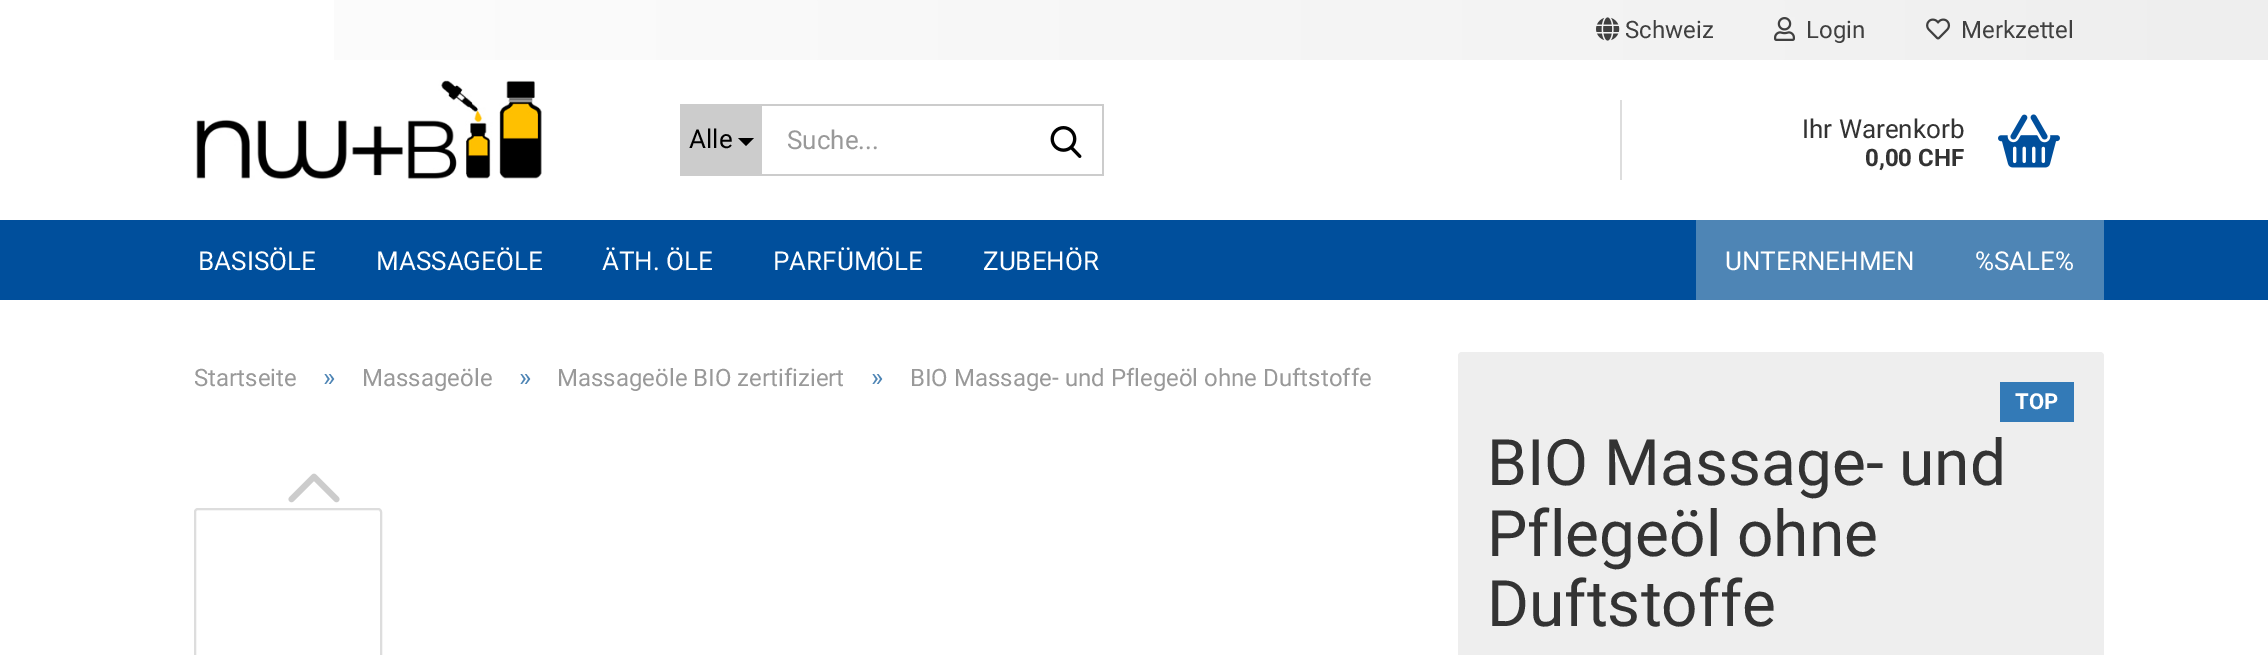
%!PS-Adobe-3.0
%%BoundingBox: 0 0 2268 655
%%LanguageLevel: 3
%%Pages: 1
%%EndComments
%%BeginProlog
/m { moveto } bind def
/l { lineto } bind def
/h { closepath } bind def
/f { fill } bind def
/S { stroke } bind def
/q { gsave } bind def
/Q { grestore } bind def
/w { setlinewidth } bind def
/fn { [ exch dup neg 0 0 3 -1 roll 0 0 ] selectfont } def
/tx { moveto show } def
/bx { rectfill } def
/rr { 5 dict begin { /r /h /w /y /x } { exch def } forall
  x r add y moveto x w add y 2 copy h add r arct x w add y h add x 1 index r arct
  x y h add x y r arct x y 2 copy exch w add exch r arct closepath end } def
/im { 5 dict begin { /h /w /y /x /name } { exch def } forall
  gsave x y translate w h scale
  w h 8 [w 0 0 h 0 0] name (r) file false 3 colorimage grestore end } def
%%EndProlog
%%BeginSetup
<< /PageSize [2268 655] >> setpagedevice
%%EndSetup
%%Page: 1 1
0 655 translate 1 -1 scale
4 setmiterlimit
1 setgray
0 0 2268 655 bx
q 334 0 m 2268 0 l 2268 60 l 334 60 l h clip newpath
<< /ShadingType 2 /ColorSpace /DeviceRGB /Coords [0 30 2268 30] /Extend [true true] /Function << /FunctionType 2 /Domain [0 1] /C0 [1 1 1] /C1 [0.933 0.933 0.933] /N 1 >> >> shfill Q
(image0.raw) 1596 17 24 24 im
/Roboto-Regular 24 fn
0.251 setgray
(Schweiz) 1625 38 tx
(image1.raw) 1774 17 21 24 im
(Login) 1806 38 tx
(image2.raw) 1926 18 25 22 im
(Merkzettel) 1961 38 tx
(image3.raw) 196 80 346 100 im
0.8 setgray
680 104 82 72 bx
/Roboto-Regular 26 fn
0 setgray
(Alle) 689 148 tx
738 138 m 754 138 l 746 146 l h f
0.8 setgray
762 104 342 2 bx
1102 104 2 72 bx
762 174 342 2 bx
0.6 setgray
(Suche...) 787 149 tx
(image4.raw) 1050 126 32 32 im
0.867 setgray
1620 100 2 80 bx
0.2 setgray
(Ihr Warenkorb) 1802 138 tx
/Roboto-Bold 24 fn
(0,00 CHF) 1865 166 tx
(image5.raw) 1998 114 62 54 im
0 0.31 0.612 setrgbcolor
0 220 2268 80 bx
/Roboto-Regular 26 fn
1 setgray
(BASISÖLE) 198 270 tx
(MASSAGEÖLE) 376 270 tx
(ÄTH. ÖLE) 602 270 tx
(PARFÜMÖLE) 773 270 tx
(ZUBEHÖR) 983 270 tx
0.306 0.522 0.71 setrgbcolor
1696 220 408 80 bx
1 setgray
(UNTERNEHMEN) 1725 270 tx
(%SALE%) 1975 270 tx
/Roboto-Regular 24 fn
0.6 setgray
(Startseite) 194 386 tx
/Roboto-Regular 26 fn
0.306 0.522 0.71 setrgbcolor
(») 323 386 tx
/Roboto-Regular 24 fn
0.6 setgray
(Massageöle) 362 386 tx
/Roboto-Regular 26 fn
0.306 0.522 0.71 setrgbcolor
(») 519 386 tx
/Roboto-Regular 24 fn
0.6 setgray
(Massageöle BIO zertifiziert) 557 386 tx
/Roboto-Regular 26 fn
0.306 0.522 0.71 setrgbcolor
(») 871 386 tx
/Roboto-Regular 24 fn
0.6 setgray
(BIO Massage- und Pflegeöl ohne Duftstoffe) 910 386 tx
(image6.raw) 288 473 52 30 im
0.867 setgray
2 w
195 509 186 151 3 rr S
0.933 setgray
1458 352 646 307 4 rr f
0.2 0.478 0.718 setrgbcolor
2000 382 74 40 bx
/Roboto-Bold 22 fn
1 setgray
(TOP) 2015 409 tx
/Roboto-Regular 64 fn
0.2 setgray
(BIO Massage- und) 1487 485 tx
(Pflegeöl ohne) 1487 556 tx
(Duftstoffe) 1487 626 tx
showpage
%%EOF
